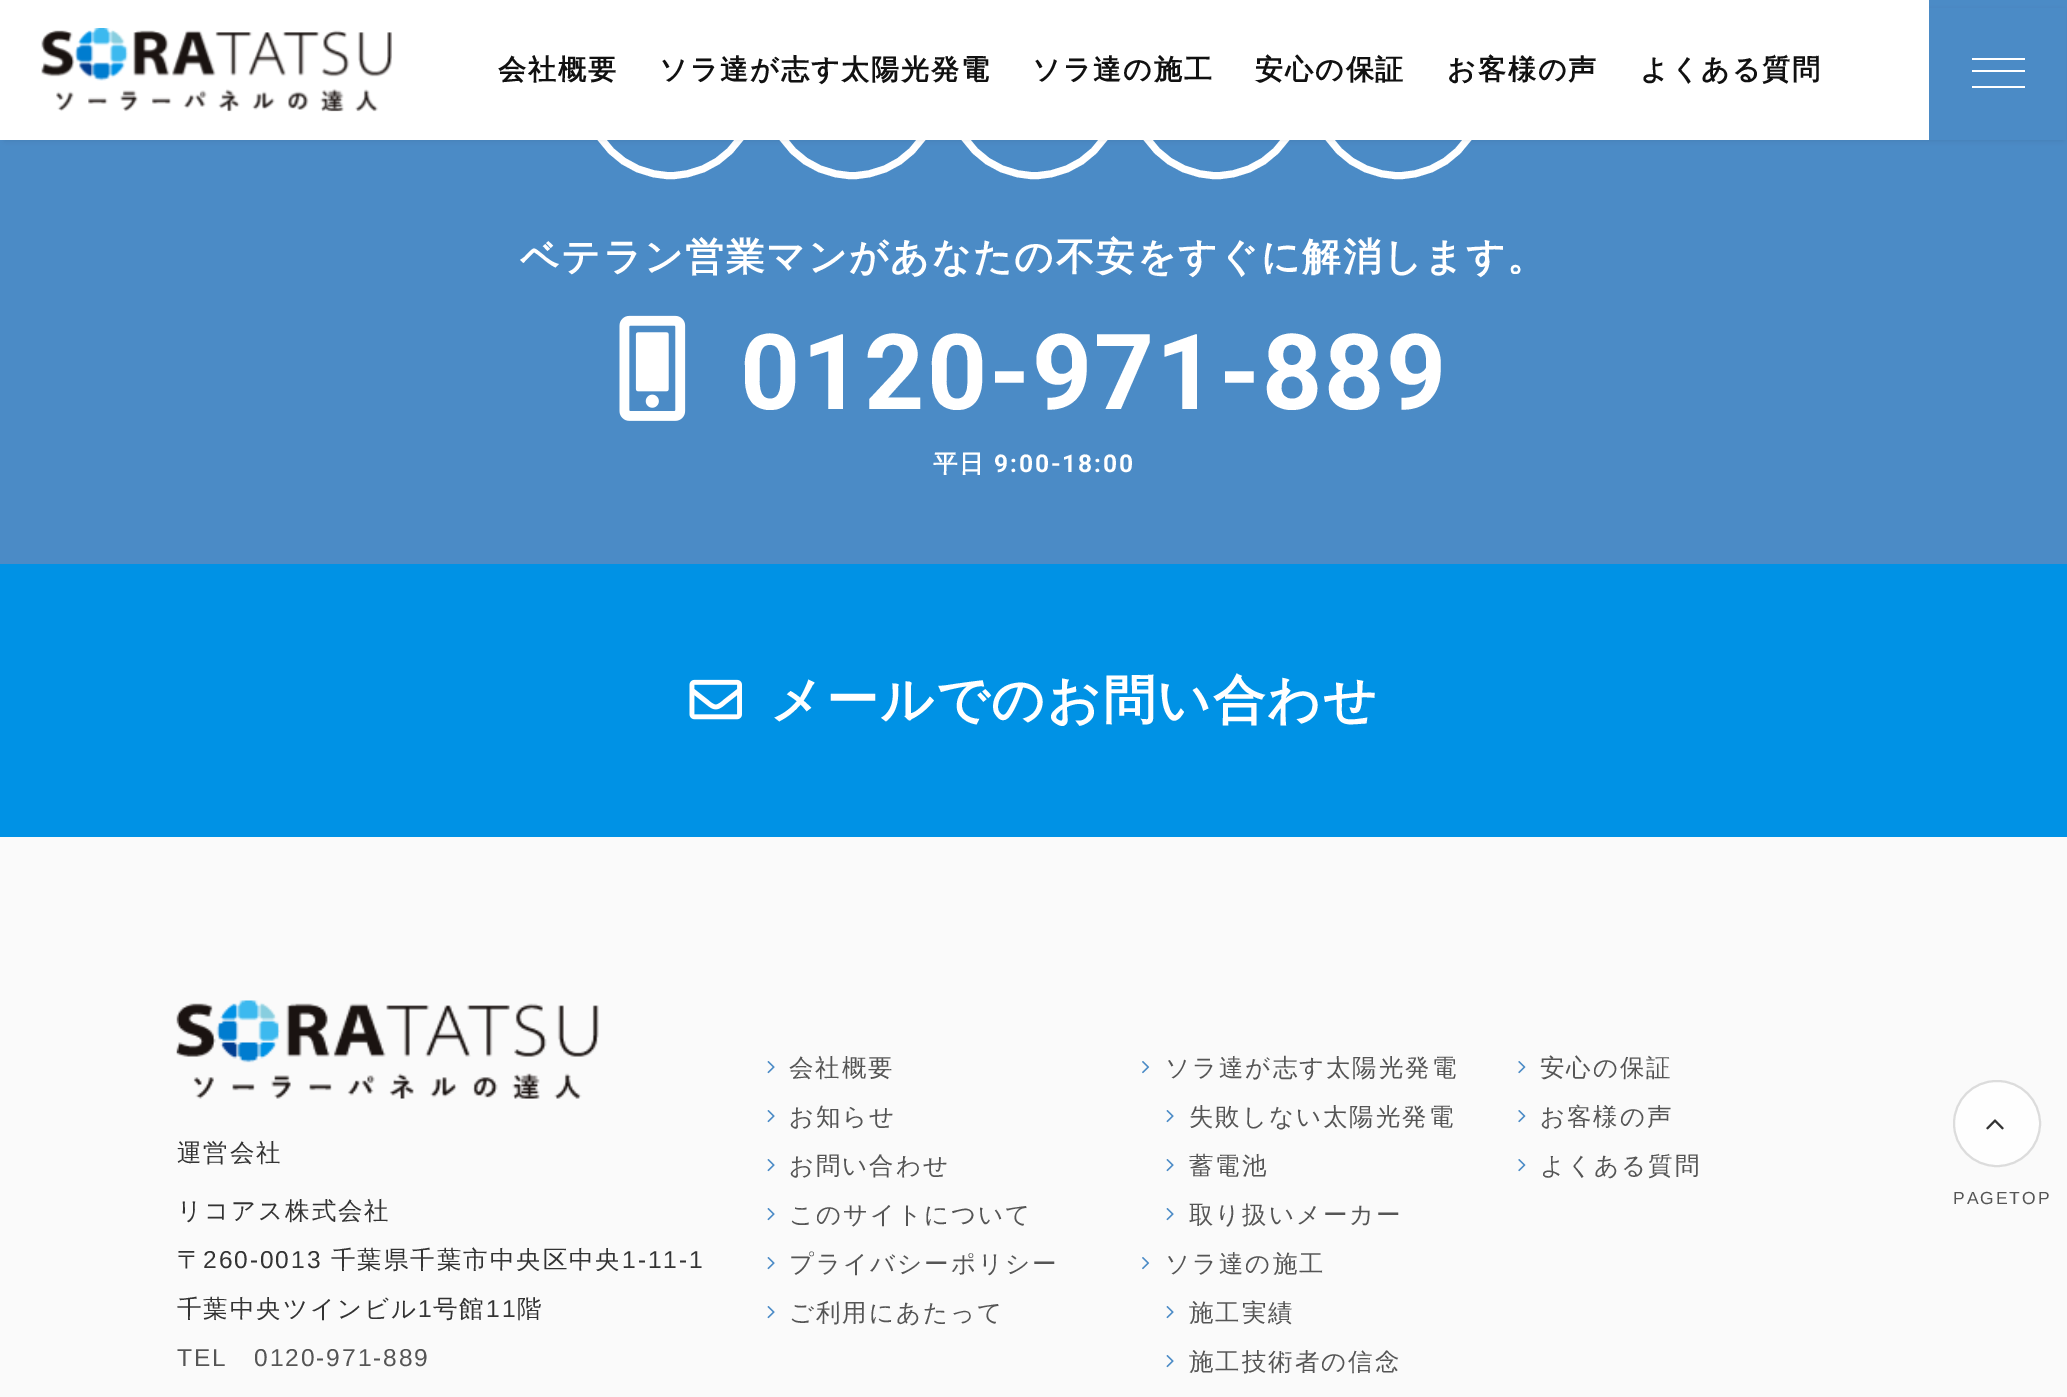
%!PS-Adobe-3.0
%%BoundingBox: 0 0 2067 1397
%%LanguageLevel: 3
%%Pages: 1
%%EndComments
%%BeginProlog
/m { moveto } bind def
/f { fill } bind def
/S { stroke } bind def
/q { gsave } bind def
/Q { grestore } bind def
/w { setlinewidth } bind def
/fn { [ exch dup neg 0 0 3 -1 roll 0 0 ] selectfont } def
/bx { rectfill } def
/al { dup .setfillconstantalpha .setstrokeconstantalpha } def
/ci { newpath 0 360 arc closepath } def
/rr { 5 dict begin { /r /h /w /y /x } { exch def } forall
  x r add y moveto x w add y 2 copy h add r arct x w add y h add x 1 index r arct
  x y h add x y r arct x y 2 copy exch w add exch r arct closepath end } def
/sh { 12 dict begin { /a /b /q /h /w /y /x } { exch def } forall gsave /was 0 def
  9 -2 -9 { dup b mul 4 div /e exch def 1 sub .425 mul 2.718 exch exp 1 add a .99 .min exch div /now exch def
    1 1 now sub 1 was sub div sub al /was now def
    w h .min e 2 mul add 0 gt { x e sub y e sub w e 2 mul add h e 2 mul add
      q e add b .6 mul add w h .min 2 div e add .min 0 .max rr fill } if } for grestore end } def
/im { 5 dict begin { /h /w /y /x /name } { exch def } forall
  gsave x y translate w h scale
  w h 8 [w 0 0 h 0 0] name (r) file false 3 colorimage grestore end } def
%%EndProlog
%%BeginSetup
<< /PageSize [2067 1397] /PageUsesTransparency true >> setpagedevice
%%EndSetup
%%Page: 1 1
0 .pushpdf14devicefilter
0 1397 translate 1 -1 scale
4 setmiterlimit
0.294 0.545 0.776 setrgbcolor
0 0 2067 1397 bx
1 setgray
7 w
670.5 91.5 84 ci S
852.5 91.5 84 ci S
1034.5 91.5 84 ci S
1216.5 91.5 84 ci S
1398.5 91.5 84 ci S
0 setgray
5 11 2058 129 0 2.5 0.1 sh
1 setgray
0 0 1929 140 bx
(image0.raw) 41 28 351 84 im
/WenQuanYiZenHei-Bold 28 fn
0.067 setgray
498 79 m 1.95 0 (会社概要) ashow
659 79 m 1.95 0 (ソラ達が志す太陽光発電) ashow
1032 79 m 1.95 0 (ソラ達の施工) ashow
1255 79 m 1.95 0 (安心の保証) ashow
1447 79 m 1.95 0 (お客様の声) ashow
1640 79 m 1.95 0 (よくある質問) ashow
0.294 0.545 0.776 setrgbcolor
1929 8 137 132 bx
1 setgray
1972 70 53 2 bx
1972 58 53 2 bx
1972 86 53 2 bx
/WenQuanYiZenHei-Bold 38.5 fn
520 270 m 1.95 0 (ベテラン営業マンがあなたの不安をすぐに解消します。) ashow
(image1.raw) 619 315 67 106 im
/Roboto-Bold 105 fn
740 409 m 1.95 0 (0120-971-889) ashow
/WenQuanYiZenHei-Bold 24.5 fn
933 472 m 1.95 0 (平日) ashow
/Roboto-Bold 24.5 fn
994 472 m 1.95 0 (9:00-18:00) ashow
0 0.573 0.898 setrgbcolor
0 564 2067 273 bx
(image2.raw) 689 679 53 41 im
/WenQuanYiZenHei-Bold 52.5 fn
1 setgray
770 718 m 1.95 0 (メールでのお問い合わせ) ashow
0.98 setgray
0 837 2067 560 bx
(image3.raw) 176 1000 423 99 im
/WenQuanYiZenHei-Medium 24.5 fn
0.2 setgray
177 1161 m 1.95 0 (運営会社) ashow
177 1219 m 1.95 0 (リコアス株式会社) ashow
177 1268 m 1.95 0 (〒) ashow
/LiberationSans-Regular 24.5 fn
203 1268 m 1.95 0 (260-0013) ashow
/WenQuanYiZenHei-Medium 24.5 fn
331 1268 m 1.95 0 (千葉県千葉市中央区中央) ashow
/LiberationSans-Regular 24.5 fn
622 1268 m 1.95 0 (1-11-1) ashow
/WenQuanYiZenHei-Medium 24.5 fn
177 1317 m 1.95 0 (千葉中央ツインビル) ashow
/LiberationSans-Regular 24.5 fn
418 1317 m 1.95 0 (1) ashow
/WenQuanYiZenHei-Medium 24.5 fn
433 1317 m 1.95 0 (号館) ashow
/LiberationSans-Regular 24.5 fn
486 1317 m 1.95 0 (11) ashow
/WenQuanYiZenHei-Medium 24.5 fn
517 1317 m 1.95 0 (階) ashow
/LiberationSans-Regular 24.5 fn
0.333 setgray
177 1366 m 1.95 0 (TEL) ashow
254 1366 m 1.95 0 (0120-971-889) ashow
(image4.raw) 767 1061 8 13 im
/WenQuanYiZenHei-Medium 24.5 fn
789 1076 m 1.95 0 (会社概要) ashow
(image4.raw) 767 1110 8 13 im
789 1125 m 1.95 0 (お知らせ) ashow
(image4.raw) 767 1159 8 13 im
789 1174 m 1.95 0 (お問い合わせ) ashow
(image4.raw) 767 1208 8 13 im
789 1223 m 1.95 0 (このサイトについて) ashow
(image4.raw) 767 1257 8 13 im
789 1272 m 1.95 0 (プライバシーポリシー) ashow
(image4.raw) 767 1306 8 13 im
789 1321 m 1.95 0 (ご利用にあたって) ashow
(image5.raw) 1142 1061 8 13 im
1165 1076 m 1.95 0 (ソラ達が志す太陽光発電) ashow
(image4.raw) 1166 1110 8 13 im
1189 1125 m 1.95 0 (失敗しない太陽光発電) ashow
(image4.raw) 1166 1159 8 13 im
1189 1174 m 1.95 0 (蓄電池) ashow
(image4.raw) 1166 1208 8 13 im
1189 1223 m 1.95 0 (取り扱いメーカー) ashow
(image5.raw) 1142 1257 8 13 im
1165 1272 m 1.95 0 (ソラ達の施工) ashow
(image4.raw) 1166 1306 8 13 im
1189 1321 m 1.95 0 (施工実績) ashow
(image4.raw) 1166 1355 8 13 im
1189 1370 m 1.95 0 (施工技術者の信念) ashow
(image6.raw) 1518 1061 8 13 im
1540 1076 m 1.95 0 (安心の保証) ashow
(image6.raw) 1518 1110 8 13 im
1540 1125 m 1.95 0 (お客様の声) ashow
(image6.raw) 1518 1159 8 13 im
1540 1174 m 1.95 0 (よくある質問) ashow
0.996 setgray
1954 1081 86 85 42.5 rr q f Q
0.863 setgray
2 w
S
(image7.raw) 1986 1119 18 11 im
/LiberationSans-Regular 17.5 fn
0.333 setgray
1953 1204 m 1.95 0 (PAGETOP) ashow
.poppdf14devicefilter showpage
%%EOF
